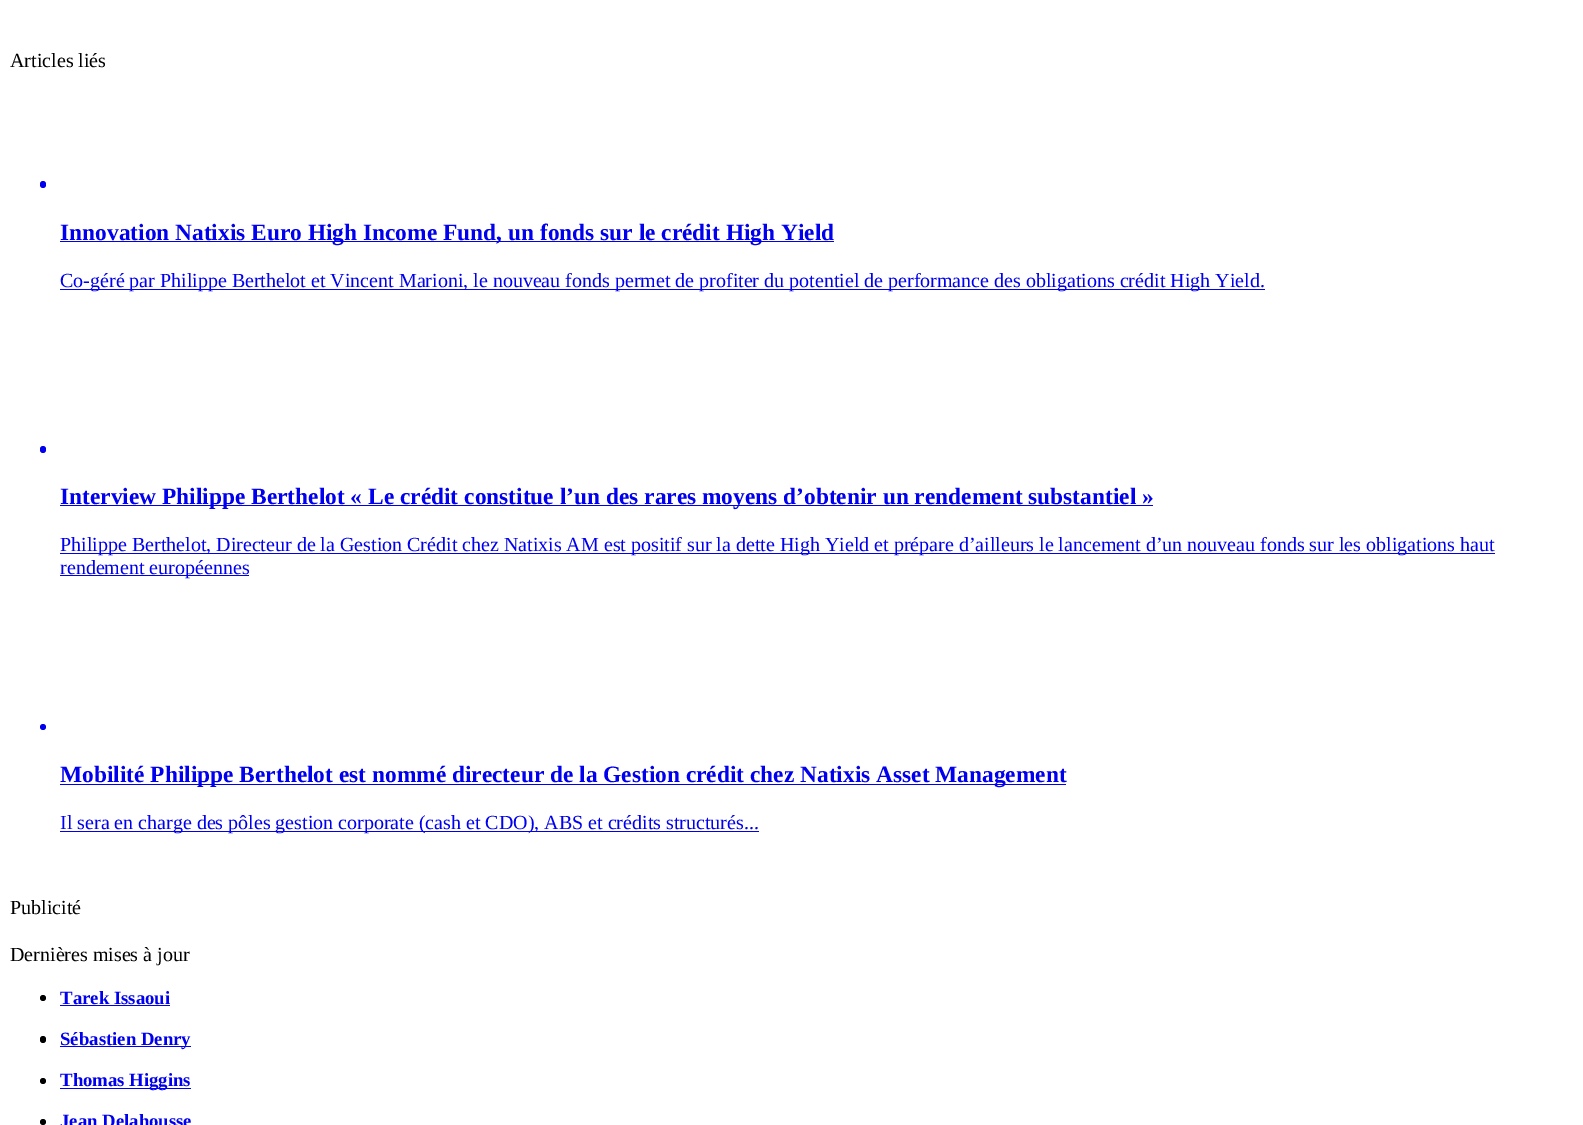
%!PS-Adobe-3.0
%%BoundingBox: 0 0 1583 1125
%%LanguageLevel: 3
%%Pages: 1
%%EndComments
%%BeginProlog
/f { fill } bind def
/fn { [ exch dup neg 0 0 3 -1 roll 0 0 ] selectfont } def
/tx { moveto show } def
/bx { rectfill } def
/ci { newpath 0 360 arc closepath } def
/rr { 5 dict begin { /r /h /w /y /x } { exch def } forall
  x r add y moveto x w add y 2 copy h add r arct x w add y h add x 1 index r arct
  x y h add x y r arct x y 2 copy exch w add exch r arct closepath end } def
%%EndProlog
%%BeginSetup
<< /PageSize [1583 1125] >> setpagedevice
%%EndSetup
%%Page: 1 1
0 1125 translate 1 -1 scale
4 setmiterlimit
1 setgray
0 0 1583 1125 bx
/LiberationSerif-Regular 20 fn
0 setgray
(Articles liés) 10 67 tx
0 0 0.933 setrgbcolor
40 181 6 7 3 rr f
60 241 774 1 bx
/LiberationSerif-Bold 23.4 fn
(Innovation Natixis Euro High Income Fund, un fonds sur le crédit High Yield) 60 240 tx
60 289 1205 1 bx
/LiberationSerif-Regular 20 fn
(Co-géré par Philippe Berthelot et Vincent Marioni, le nouveau fonds permet de profiter du potentiel de performance des obligations crédit High Yield.) 60 287 tx
40 446 6 7 3 rr f
60 505 1093 1 bx
/LiberationSerif-Bold 23.4 fn
(Interview Philippe Berthelot « Le crédit constitue l’un des rares moyens d’obtenir un rendement substantiel ») 60 504 tx
60 553 1435 1 bx
/LiberationSerif-Regular 20 fn
(Philippe Berthelot, Directeur de la Gestion Crédit chez Natixis AM est positif sur la dette High Yield et prépare d’ailleurs le lancement d’un nouveau fonds sur les obligations haut) 60 551 tx
60 575 189 1 bx
(rendement européennes) 60 574 tx
43 727 3 ci f
60 784 1006 1 bx
/LiberationSerif-Bold 23.4 fn
(Mobilité Philippe Berthelot est nommé directeur de la Gestion crédit chez Natixis Asset Management) 60 782 tx
60 831 699 1 bx
/LiberationSerif-Regular 20 fn
(Il sera en charge des pôles gestion corporate \(cash et CDO\), ABS et crédits structurés...) 60 829 tx
0 setgray
(Publicité) 10 914 tx
(Dernières mises à jour) 10 961 tx
43 998 3 ci f
/LiberationSerif-Bold 18.75 fn
0 0 0.933 setrgbcolor
(Tarek Issaoui) 60 1004 tx
60 1005 110 1 bx
0 setgray
40 1036 6 7 3 rr f
0 0 0.933 setrgbcolor
60 1046 131 1 bx
(Sébastien Denry) 60 1045 tx
0 setgray
43 1081 3 ci f
0 0 0.933 setrgbcolor
60 1088 131 1 bx
(Thomas Higgins) 60 1086 tx
0 setgray
43 1122 3 ci f
0 0 0.933 setrgbcolor
(Jean Delahousse) 60 1127 tx
showpage
%%EOF
